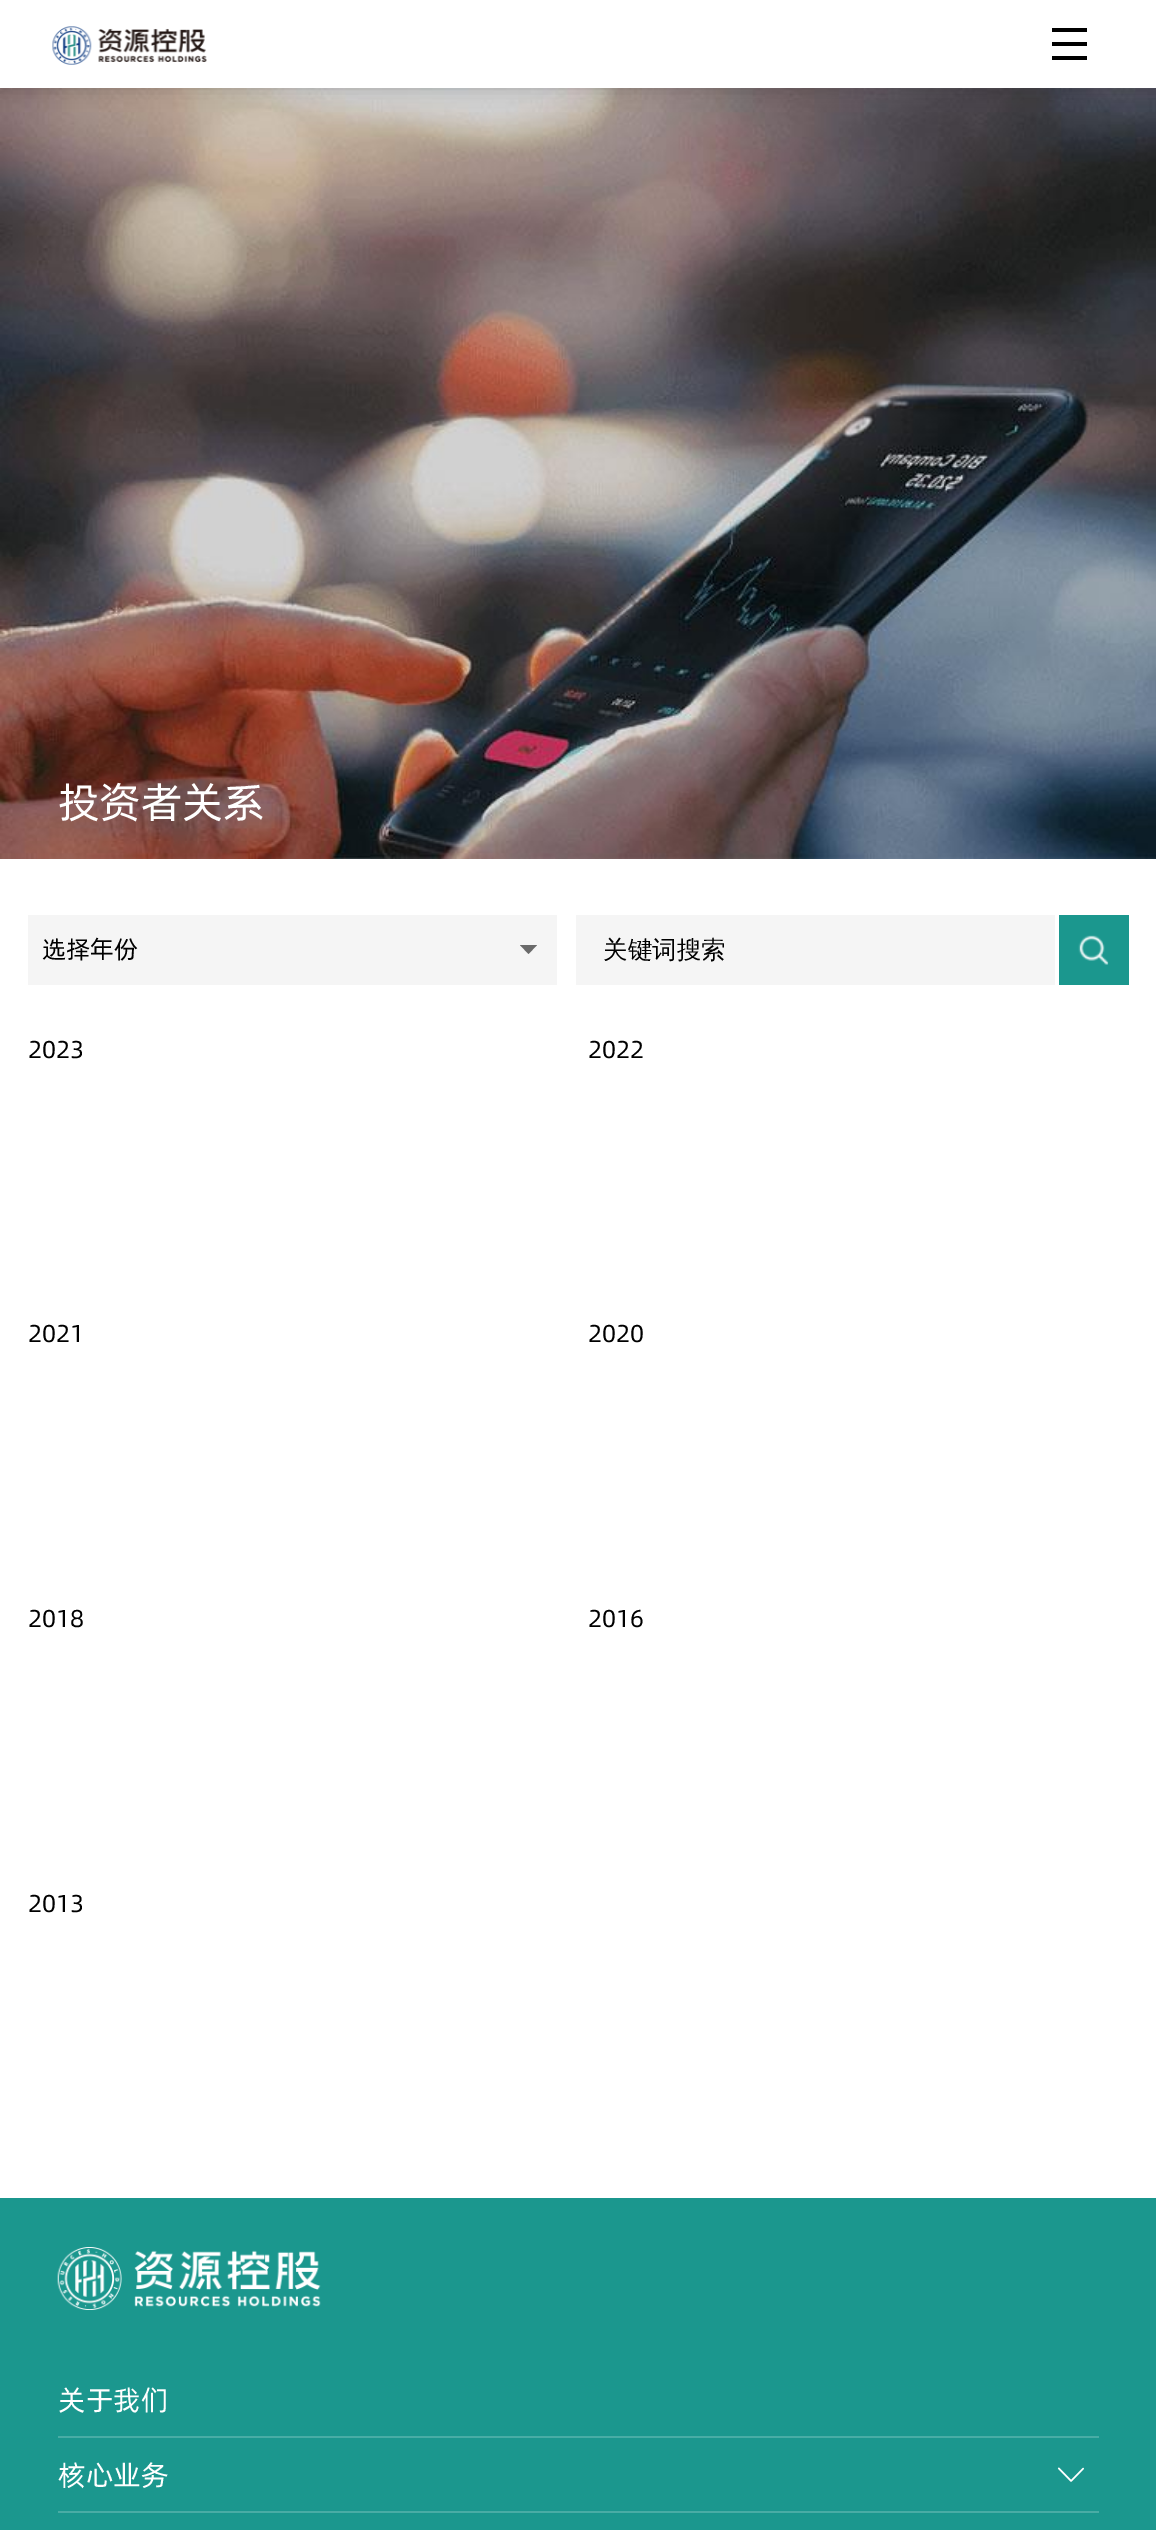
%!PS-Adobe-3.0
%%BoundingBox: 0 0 1156 2530
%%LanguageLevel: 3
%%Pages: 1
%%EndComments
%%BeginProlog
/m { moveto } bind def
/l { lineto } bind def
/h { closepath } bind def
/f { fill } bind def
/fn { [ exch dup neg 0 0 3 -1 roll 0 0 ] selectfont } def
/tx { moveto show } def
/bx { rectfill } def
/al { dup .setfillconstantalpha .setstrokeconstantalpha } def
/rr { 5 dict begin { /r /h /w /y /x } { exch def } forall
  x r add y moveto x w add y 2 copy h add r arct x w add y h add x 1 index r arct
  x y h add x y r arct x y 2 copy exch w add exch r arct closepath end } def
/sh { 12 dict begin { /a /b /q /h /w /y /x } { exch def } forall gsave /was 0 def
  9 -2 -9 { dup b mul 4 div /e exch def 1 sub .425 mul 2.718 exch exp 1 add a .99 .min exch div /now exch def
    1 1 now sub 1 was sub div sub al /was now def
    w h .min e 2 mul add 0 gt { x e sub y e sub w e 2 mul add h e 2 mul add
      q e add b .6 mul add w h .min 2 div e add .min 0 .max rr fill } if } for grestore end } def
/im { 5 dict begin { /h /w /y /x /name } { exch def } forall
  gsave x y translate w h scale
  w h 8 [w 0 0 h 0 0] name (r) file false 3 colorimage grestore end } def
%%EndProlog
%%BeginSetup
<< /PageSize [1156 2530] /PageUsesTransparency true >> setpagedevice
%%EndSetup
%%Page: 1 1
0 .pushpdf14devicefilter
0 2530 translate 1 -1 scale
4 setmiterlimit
1 setgray
0 0 1156 2530 bx
(image1.raw) 0 88 1156 771 im
0 setgray
0 0 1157 88 0 9 0.2 sh
1 setgray
0 0 1156 88 bx
(image0.raw) 52 26 155 39 im
0 setgray
1052 28 35 4 bx
1052 42 35 4 bx
1052 56 35 4 bx
/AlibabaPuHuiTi-Regular 42 fn
1 setgray
(投资者关系) 58 817 tx
0.961 setgray
28 915 529 70 bx
/AlibabaPuHuiTi-Regular 24.5 fn
0 setgray
(选择年份) 42 958 tx
0.416 setgray
520 945 m 537 945 l 528.5 954 l h f
0.961 setgray
576 915 479 70 bx
/WenQuanYiZenHei-Medium 24.5 fn
0 setgray
(关键词搜索) 603 958 tx
0.106 0.592 0.557 setrgbcolor
1059 915 70 70 bx
(image2.raw) 1078 935 31 30 im
/AlibabaPuHuiTi-Regular 24.5 fn
0 setgray
(2023) 28 1058 tx
(2022) 588 1058 tx
(2021) 28 1342 tx
(2020) 588 1342 tx
(2018) 28 1627 tx
(2016) 588 1627 tx
(2013) 28 1912 tx
0.106 0.592 0.557 setrgbcolor
0 2198 1156 332 bx
(image3.raw) 57 2247 264 63 im
0.286 0.675 0.647 setrgbcolor
58 2436 1041 2 bx
/AlibabaPuHuiTi-Regular 28 fn
1 setgray
(关于我们) 58 2410 tx
0.286 0.675 0.647 setrgbcolor
58 2511 1041 2 bx
1 setgray
(核心业务) 58 2485 tx
(image4.raw) 1057 2467 27 15 im
.poppdf14devicefilter showpage
%%EOF
